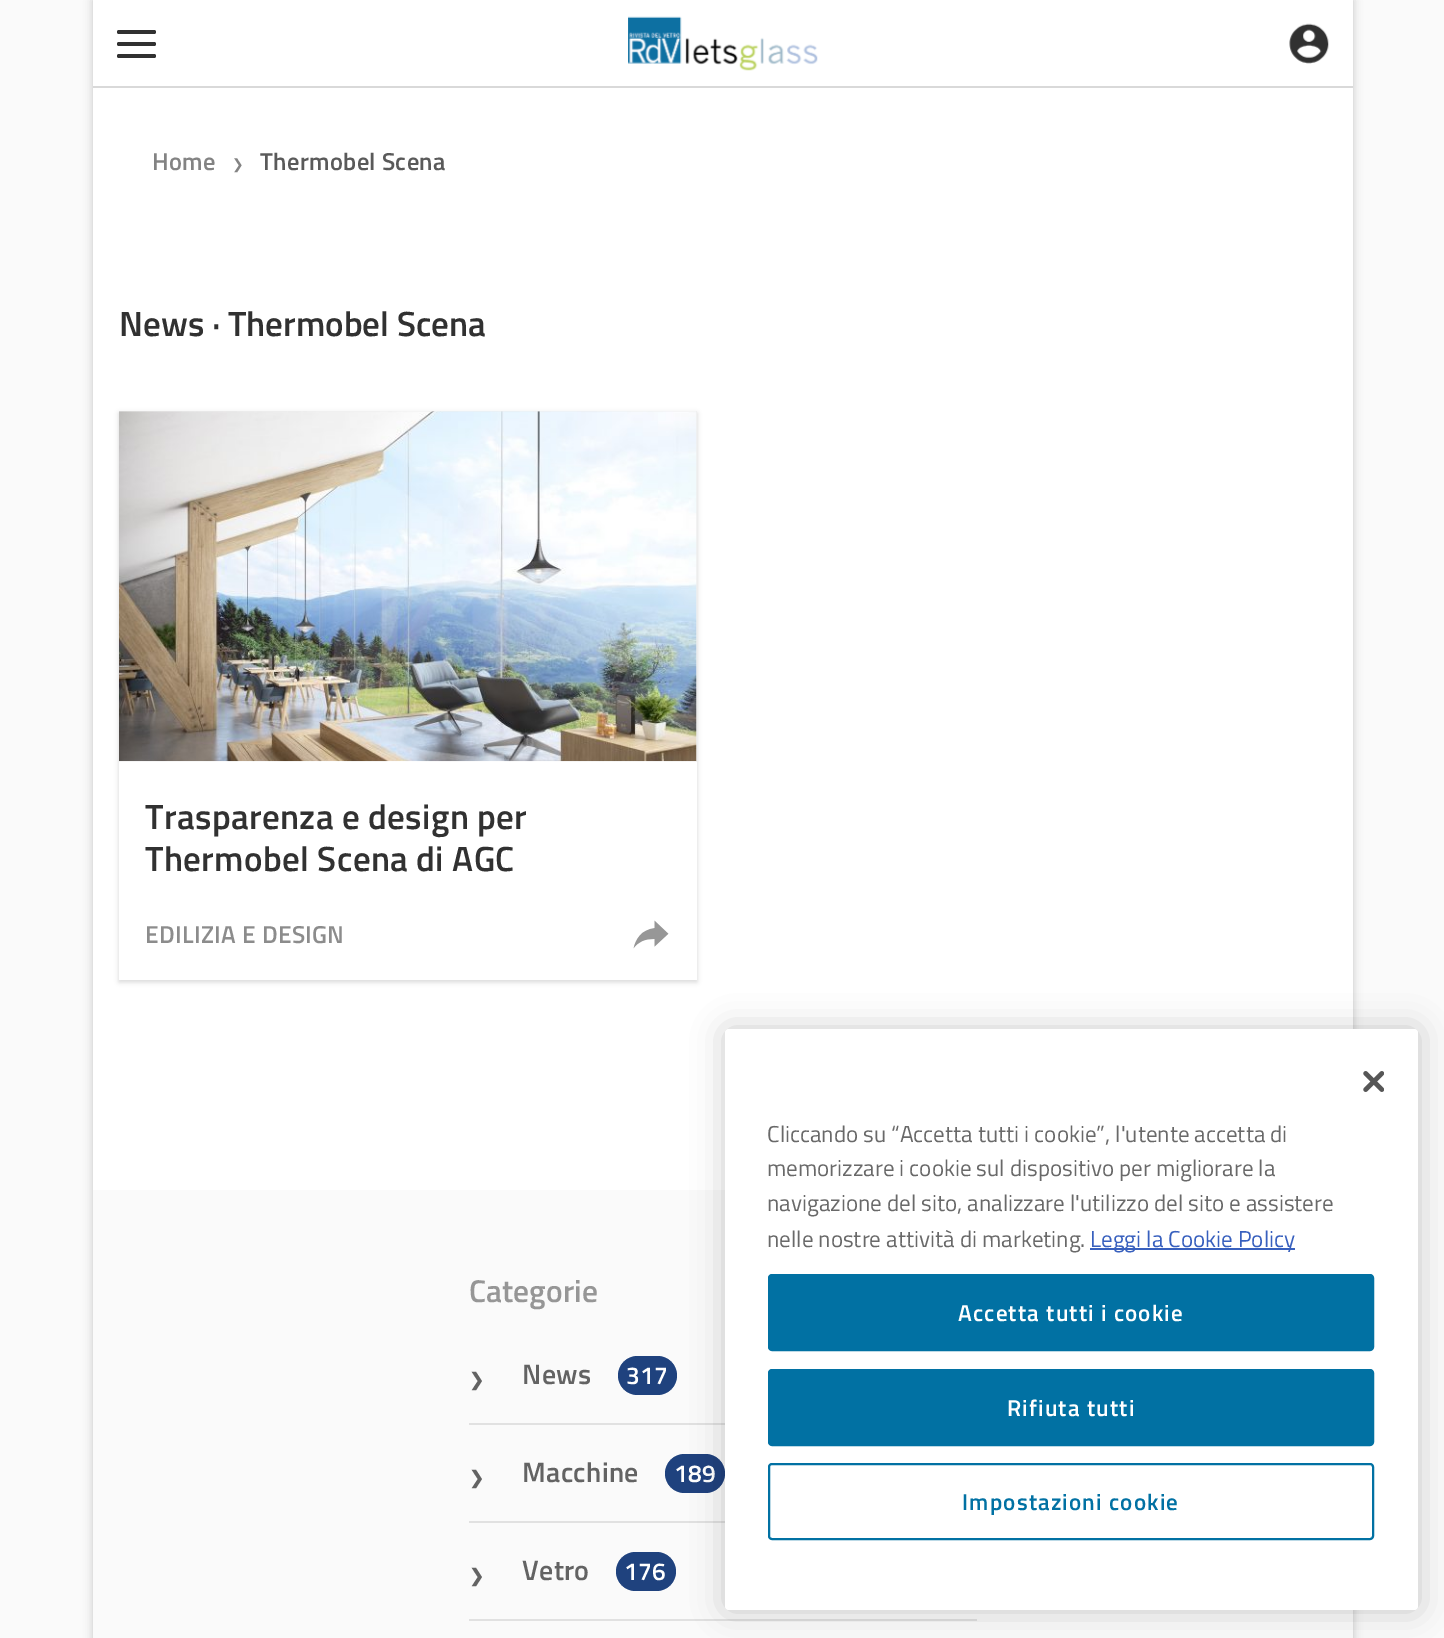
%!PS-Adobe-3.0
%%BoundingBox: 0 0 1444 1638
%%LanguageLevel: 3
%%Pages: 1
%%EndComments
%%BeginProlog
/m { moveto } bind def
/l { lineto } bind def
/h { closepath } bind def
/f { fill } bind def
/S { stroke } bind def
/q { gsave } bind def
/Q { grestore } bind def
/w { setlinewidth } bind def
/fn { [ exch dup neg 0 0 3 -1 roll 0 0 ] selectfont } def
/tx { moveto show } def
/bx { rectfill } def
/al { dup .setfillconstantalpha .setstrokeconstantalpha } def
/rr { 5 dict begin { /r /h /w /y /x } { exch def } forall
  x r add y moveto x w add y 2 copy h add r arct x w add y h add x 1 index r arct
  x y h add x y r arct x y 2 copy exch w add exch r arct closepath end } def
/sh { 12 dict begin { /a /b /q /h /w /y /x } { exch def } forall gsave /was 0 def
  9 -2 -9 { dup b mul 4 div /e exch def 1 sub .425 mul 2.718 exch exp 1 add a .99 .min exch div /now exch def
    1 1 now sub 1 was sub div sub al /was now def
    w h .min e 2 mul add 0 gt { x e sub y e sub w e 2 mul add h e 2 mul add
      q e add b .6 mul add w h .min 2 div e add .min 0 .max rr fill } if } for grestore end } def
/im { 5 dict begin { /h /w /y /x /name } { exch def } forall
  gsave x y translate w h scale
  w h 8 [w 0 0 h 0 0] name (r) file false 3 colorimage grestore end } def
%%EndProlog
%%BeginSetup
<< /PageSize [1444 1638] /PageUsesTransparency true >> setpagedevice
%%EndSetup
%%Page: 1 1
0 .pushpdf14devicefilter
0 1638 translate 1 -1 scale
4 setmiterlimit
0.98 setgray
0 0 1444 1638 bx
0 setgray
93 0 1260 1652 0 4.5 0.2 sh
1 setgray
93 0 1260 1190 bx
0.851 setgray
93 86 1260 2 bx
0.192 setgray
117 30 39 4 2 rr f
117 42 39 4 2 rr f
117 54 39 4 2 rr f
(image0.raw) 628 16 190 55 im
(image1.raw) 1289 23 40 41 im
/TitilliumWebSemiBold-SemiBold 24.5 fn
0.514 setgray
152 170 m 0.35 0 (Home) ashow
/DejaVuSans-Regular 14 fn
(❯) 232 169 tx
/TitilliumWebSemiBold-SemiBold 24.5 fn
0.353 setgray
260 170 m 0.35 0 (Thermobel Scena) ashow
/TitilliumWebSemiBold-SemiBold 35 fn
0.192 setgray
(News · Thermobel Scena) 119 336 tx
q
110 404 m 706 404 l 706 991 l 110 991 l h 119 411 m 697 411 l 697 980 l 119 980 l h eoclip newpath
0 setgray
119 413 578 569 0 2.5 0.15 sh
Q
0.933 setgray
119 411 578 350 bx
(image2.raw) 119 411 578 351 im
0.192 setgray
145 829 m 0.35 0 (Trasparenza e design per) ashow
145 871 m 0.35 0 (Thermobel Scena di AGC) ashow
/TitilliumWebSemiBold-SemiBold 24.5 fn
0.549 setgray
145 943 m 0.35 0 (EDILIZIA E DESIGN) ashow
(image3.raw) 633 920 36 29 im
0.98 setgray
93 1190 1260 448 bx
/TitilliumWebSemiBold-SemiBold 31.5 fn
0.588 setgray
(Categorie) 469 1302 tx
0.882 setgray
469 1423 256 2 bx
/DejaVuSans-Bold 18 fn
0.388 setgray
469 1386 m 0.35 0 (❯) ashow
/TitilliumWebSemiBold-SemiBold 28 fn
522 1384 m 0.35 0 (News) ashow
0.122 0.259 0.494 setrgbcolor
618 1356 59 39 19.5 rr f
/TitilliumWebSemiBold-SemiBold 24.5 fn
1 setgray
626 1384 m 0.35 0 (317) ashow
0.882 setgray
469 1521 256 2 bx
/DejaVuSans-Bold 18 fn
0.388 setgray
469 1484 m 0.35 0 (❯) ashow
/TitilliumWebSemiBold-SemiBold 28 fn
522 1482 m 0.35 0 (Macchine) ashow
0.122 0.259 0.494 setrgbcolor
665 1454 60 39 19.5 rr f
/TitilliumWebSemiBold-SemiBold 24.5 fn
1 setgray
674 1482 m 0.35 0 (189) ashow
0.882 setgray
469 1619 508 2 bx
/DejaVuSans-Bold 18 fn
0.388 setgray
469 1582 m 0.35 0 (❯) ashow
/TitilliumWebSemiBold-SemiBold 28 fn
522 1580 m 0.35 0 (Vetro) ashow
0.122 0.259 0.494 setrgbcolor
616 1552 60 39 19.5 rr f
/TitilliumWebSemiBold-SemiBold 24.5 fn
1 setgray
624 1580 m 0.35 0 (176) ashow
0 setgray
725 1029 693 581 4 16 0.2 sh
1 setgray
725 1029 693 581 4 rr f
(image4.raw) 1363 1071 21 21 im
/TitilliumWeb-Regular 23 fn
0.412 setgray
(Cliccando su “Accetta tutti i cookie”, l'utente accetta di) 767 1142 tx
(memorizzare i cookie sul dispositivo per migliorare la) 767 1176 tx
(navigazione del sito, analizzare l'utilizzo del sito e assistere) 767 1211 tx
(nelle nostre attività di marketing.) 767 1247 tx
0.22 0.376 0.745 setrgbcolor
1090 1248 205 2 bx
(Leggi la Cookie Policy) 1090 1247 tx
0.004 0.443 0.639 setrgbcolor
769 1275 604 75 3 rr q f Q
2 w
S
/TitilliumWebSemiBold-SemiBold 23 fn
1 setgray
958 1321 m 1.15 0 (Accetta tutti i cookie) ashow
0.004 0.443 0.639 setrgbcolor
769 1370 604 75 3 rr q f Q
S
1 setgray
1007 1416 m 1.15 0 (Rifiuta tutti) ashow
0.004 0.443 0.639 setrgbcolor
769 1464 604 75 3 rr S
962 1510 m 1.15 0 (Impostazioni cookie) ashow
.poppdf14devicefilter showpage
%%EOF
